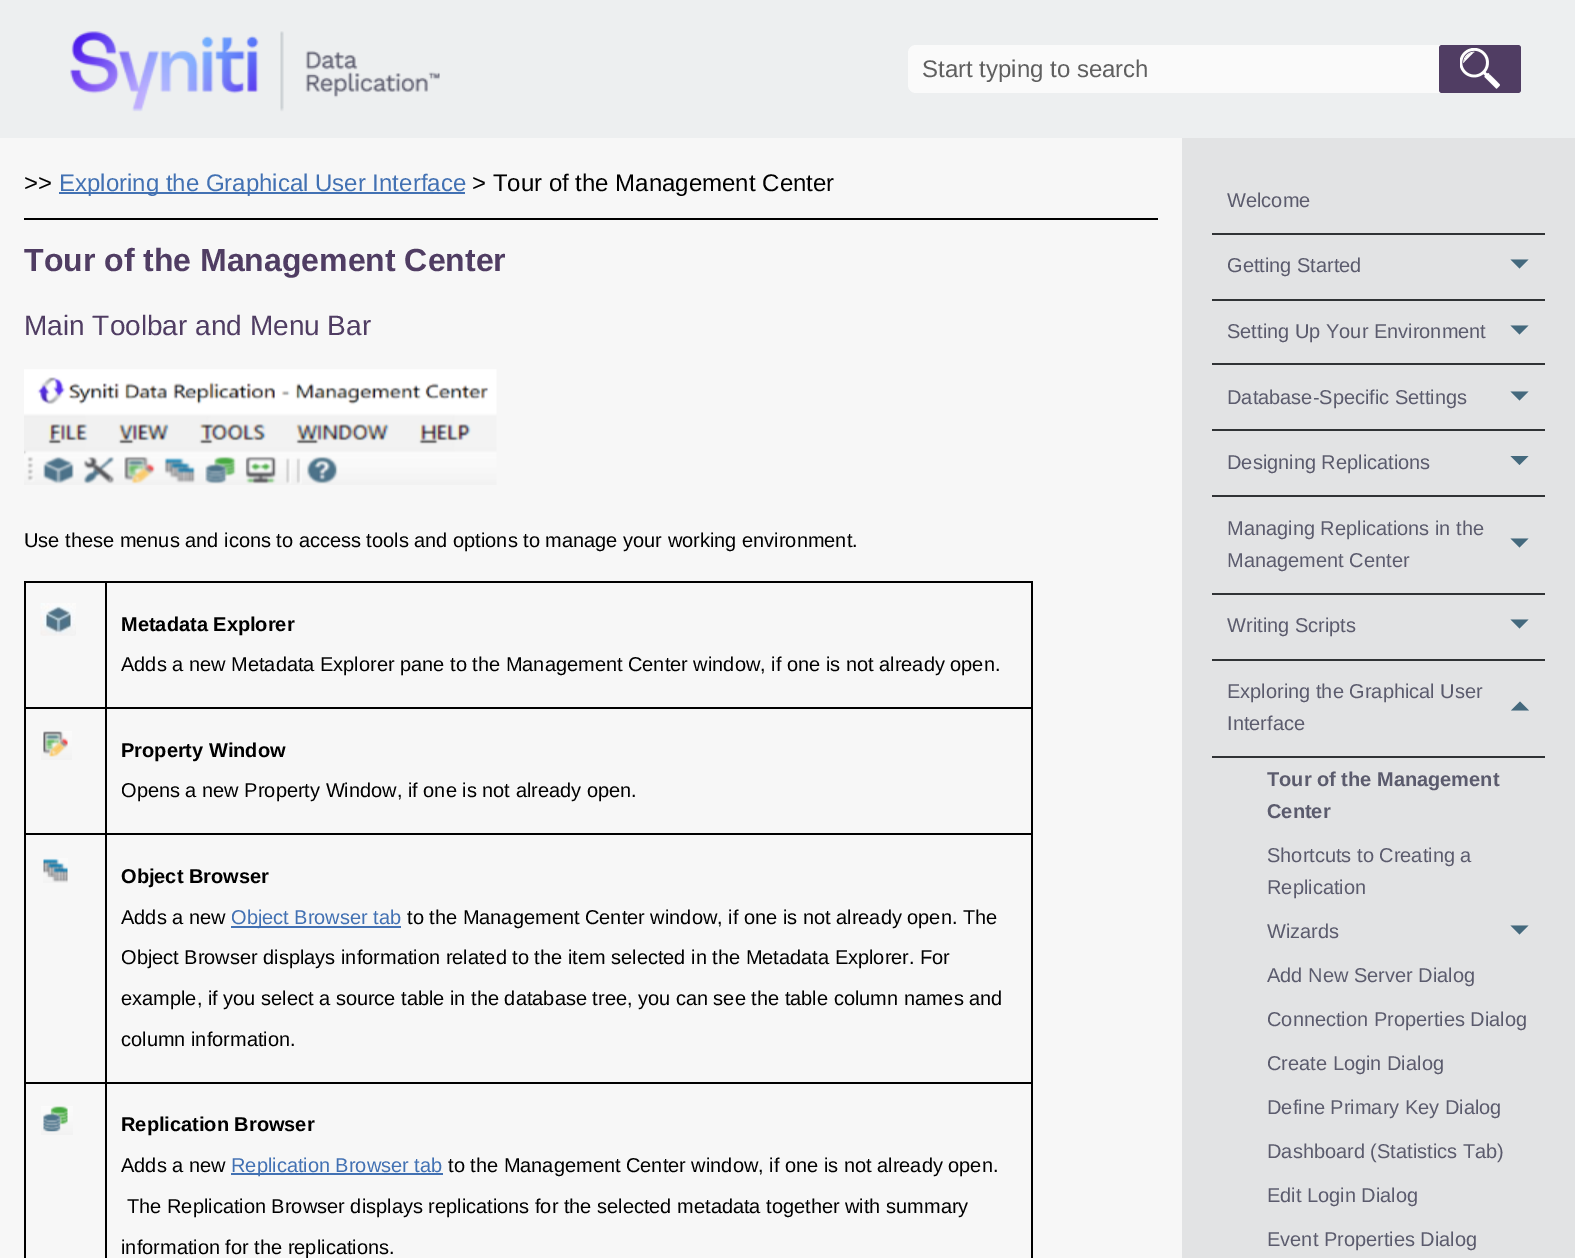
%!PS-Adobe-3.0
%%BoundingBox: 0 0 1575 1258
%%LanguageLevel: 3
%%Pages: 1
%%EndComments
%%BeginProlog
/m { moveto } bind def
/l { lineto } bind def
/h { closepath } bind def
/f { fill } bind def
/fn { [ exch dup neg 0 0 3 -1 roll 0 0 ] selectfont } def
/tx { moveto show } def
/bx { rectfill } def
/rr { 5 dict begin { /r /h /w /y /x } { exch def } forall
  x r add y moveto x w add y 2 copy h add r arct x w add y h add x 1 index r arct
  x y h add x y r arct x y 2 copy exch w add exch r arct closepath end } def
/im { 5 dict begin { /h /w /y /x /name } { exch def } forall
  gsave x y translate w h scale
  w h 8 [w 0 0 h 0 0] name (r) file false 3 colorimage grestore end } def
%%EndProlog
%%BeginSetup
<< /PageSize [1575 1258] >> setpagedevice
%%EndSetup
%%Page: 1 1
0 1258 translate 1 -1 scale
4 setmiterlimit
0.969 setgray
0 0 1575 1258 bx
0.929 0.937 0.941 setrgbcolor
0 0 1575 138 bx
(image0.raw) 70 31 370 81 im
0.98 setgray
908 45 613 48 8 rr f
/LiberationSans-Regular 24 fn
0.373 setgray
(Start typing to search) 922 77 tx
0.314 0.239 0.388 setrgbcolor
1439 45 82 48 3 rr f
(image1.raw) 1460 48 40 41 im
0 setgray
24 218 1134 2 bx
(>>) 24 191 tx
0.259 0.443 0.702 setrgbcolor
59 192 406 2 bx
(Exploring the Graphical User Interface) 59 191 tx
0 setgray
(> Tour of the Management Center) 472 191 tx
/LiberationSans-Bold 32 fn
0.314 0.239 0.388 setrgbcolor
(Tour of the Management Center) 24 271 tx
/LiberationSans-Regular 28 fn
(Main Toolbar and Menu Bar) 24 335 tx
(image2.raw) 24 369 473 116 im
/LiberationSans-Regular 20 fn
0 setgray
(Use these menus and icons to access tools and options to manage your working environment.) 24 547 tx
24 581 1008 2 bx
1031 581 2 677 bx
24 581 2 677 bx
105 1082 2 176 bx
105 1082 927 2 bx
105 833 2 250 bx
105 833 927 2 bx
105 707 2 127 bx
105 707 927 2 bx
105 581 2 127 bx
24 707 83 2 bx
(image3.raw) 40 603 36 33 im
/LiberationSans-Bold 20 fn
(Metadata Explorer) 121 631 tx
/LiberationSans-Regular 20 fn
(Adds a new Metadata Explorer pane to the Management Center window, if one is not already open.) 121 671 tx
24 833 83 2 bx
(image4.raw) 41 731 31 29 im
/LiberationSans-Bold 20 fn
(Property Window) 121 757 tx
/LiberationSans-Regular 20 fn
(Opens a new Property Window, if one is not already open.) 121 797 tx
24 1082 83 2 bx
(image5.raw) 43 858 25 25 im
/LiberationSans-Bold 20 fn
(Object Browser) 121 883 tx
/LiberationSans-Regular 20 fn
(Adds a new) 121 924 tx
0.259 0.443 0.702 setrgbcolor
231 926 170 2 bx
(Object Browser tab) 231 924 tx
0 setgray
(to the Management Center window, if one is not already open. The) 407 924 tx
(Object Browser displays information related to the item selected in the Metadata Explorer. For) 121 964 tx
(example, if you select a source table in the database tree, you can see the table column names and) 121 1005 tx
(column information.) 121 1046 tx
(image6.raw) 41 1106 32 29 im
/LiberationSans-Bold 20 fn
(Replication Browser) 121 1131 tx
/LiberationSans-Regular 20 fn
(Adds a new) 121 1172 tx
0.259 0.443 0.702 setrgbcolor
231 1173 212 2 bx
(Replication Browser tab) 231 1172 tx
0 setgray
(to the Management Center window, if one is not already open.) 448 1172 tx
(The Replication Browser displays replications for the selected metadata together with summary) 127 1213 tx
(information for the replications.) 121 1254 tx
0.886 0.89 0.894 setrgbcolor
1182 138 393 1120 bx
0.188 0.2 0.208 setrgbcolor
1212 233 333 2 bx
0.357 0.357 0.427 setrgbcolor
(Welcome) 1227 207 tx
0.188 0.2 0.208 setrgbcolor
1212 299 333 2 bx
0.357 0.357 0.427 setrgbcolor
(Getting Started) 1227 272 tx
0.267 0.412 0.49 setrgbcolor
1510.5 259.5 m 1528.5 259.5 l 1519.5 268.5 l h f
0.188 0.2 0.208 setrgbcolor
1212 363 333 2 bx
0.357 0.357 0.427 setrgbcolor
(Setting Up Your Environment) 1227 338 tx
0.267 0.412 0.49 setrgbcolor
1510.5 325.5 m 1528.5 325.5 l 1519.5 334.5 l h f
0.188 0.2 0.208 setrgbcolor
1212 429 333 2 bx
0.357 0.357 0.427 setrgbcolor
(Database-Specific Settings) 1227 404 tx
0.267 0.412 0.49 setrgbcolor
1510.5 391.5 m 1528.5 391.5 l 1519.5 400.5 l h f
0.188 0.2 0.208 setrgbcolor
1212 495 333 2 bx
0.357 0.357 0.427 setrgbcolor
(Designing Replications) 1227 469 tx
0.267 0.412 0.49 setrgbcolor
1510.5 456 m 1528.5 456 l 1519.5 465 l h f
0.188 0.2 0.208 setrgbcolor
1212 593 333 2 bx
0.357 0.357 0.427 setrgbcolor
(Managing Replications in the) 1227 535 tx
0.267 0.412 0.49 setrgbcolor
1510.5 538.5 m 1528.5 538.5 l 1519.5 547.5 l h f
0.357 0.357 0.427 setrgbcolor
(Management Center) 1227 567 tx
0.188 0.2 0.208 setrgbcolor
1212 659 333 2 bx
0.357 0.357 0.427 setrgbcolor
(Writing Scripts) 1227 632 tx
0.267 0.412 0.49 setrgbcolor
1510.5 619.5 m 1528.5 619.5 l 1519.5 628.5 l h f
0.188 0.2 0.208 setrgbcolor
1212 756 333 2 bx
0.357 0.357 0.427 setrgbcolor
(Exploring the Graphical User) 1227 698 tx
0.267 0.412 0.49 setrgbcolor
1511 710.5 m 1529 710.5 l 1520 701.5 l h f
0.357 0.357 0.427 setrgbcolor
(Interface) 1227 730 tx
/LiberationSans-Bold 20 fn
(Tour of the Management) 1267 786 tx
(Center) 1267 818 tx
/LiberationSans-Regular 20 fn
(Shortcuts to Creating a) 1267 862 tx
(Replication) 1267 894 tx
(Wizards) 1267 938 tx
0.267 0.412 0.49 setrgbcolor
1510.5 925.5 m 1528.5 925.5 l 1519.5 934.5 l h f
0.357 0.357 0.427 setrgbcolor
(Add New Server Dialog) 1267 982 tx
(Connection Properties Dialog) 1267 1026 tx
(Create Login Dialog) 1267 1070 tx
(Define Primary Key Dialog) 1267 1114 tx
(Dashboard \(Statistics Tab\)) 1267 1158 tx
(Edit Login Dialog) 1267 1202 tx
(Event Properties Dialog) 1267 1246 tx
showpage
%%EOF
